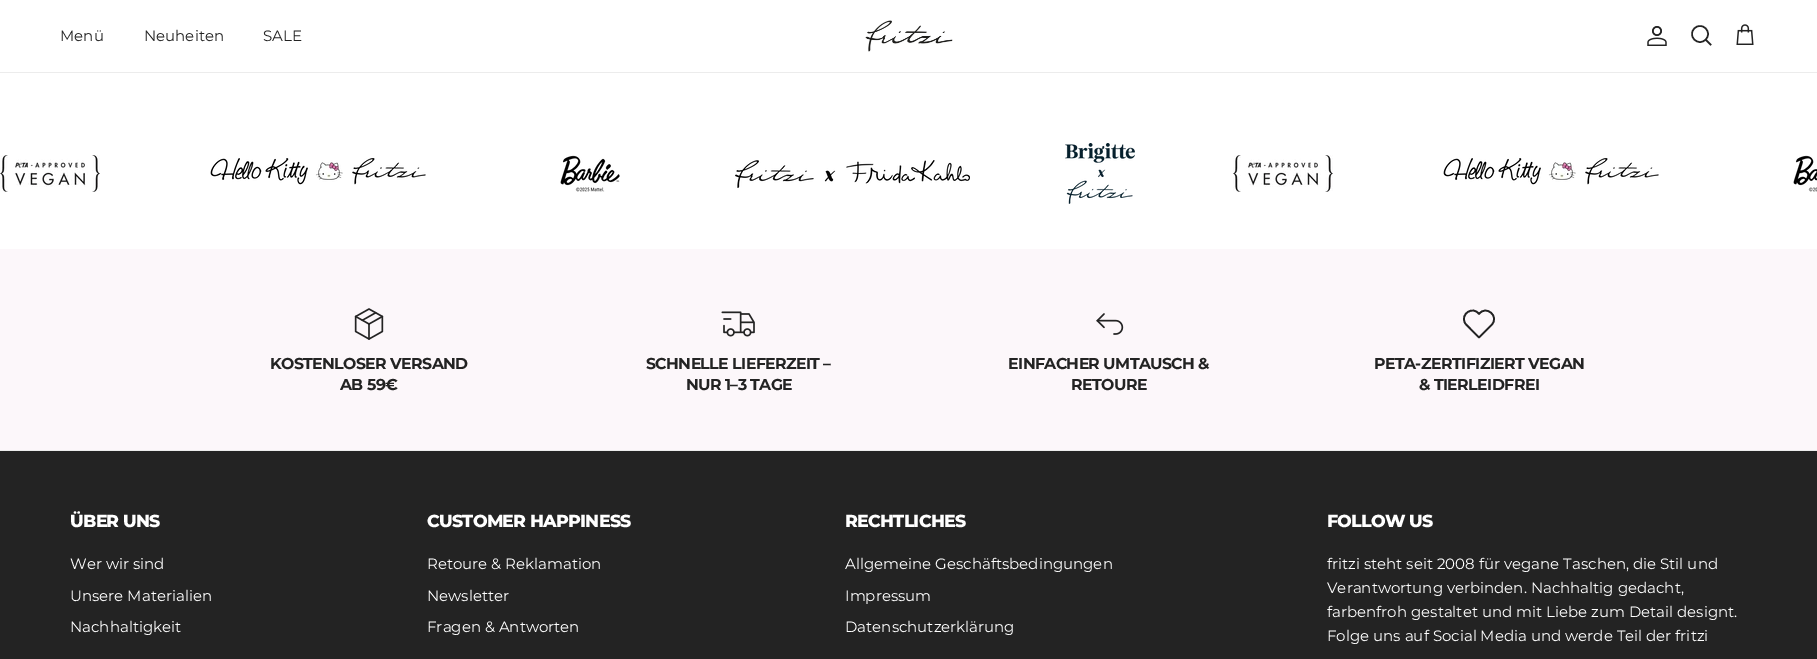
%!PS-Adobe-3.0
%%BoundingBox: 0 0 1817 659
%%LanguageLevel: 3
%%Pages: 1
%%EndComments
%%BeginProlog
/m { moveto } bind def
/l { lineto } bind def
/c { curveto } bind def
/S { stroke } bind def
/w { setlinewidth } bind def
/fn { [ exch dup neg 0 0 3 -1 roll 0 0 ] selectfont } def
/tx { moveto show } def
/bx { rectfill } def
/ci { newpath 0 360 arc closepath } def
/im { 5 dict begin { /h /w /y /x /name } { exch def } forall
  gsave x y translate w h scale
  w h 8 [w 0 0 h 0 0] name (r) file false 3 colorimage grestore end } def
%%EndProlog
%%BeginSetup
<< /PageSize [1817 659] >> setpagedevice
%%EndSetup
%%Page: 1 1
0 659 translate 1 -1 scale
4 setmiterlimit
1 setgray
0 0 1817 659 bx
0.925 setgray
0 72 1817 1 bx
/Montserrat-Regular 15 fn
0.137 setgray
(Menü) 60 41 tx
(Neuheiten) 144 41 tx
(SALE) 263 41 tx
(image0.raw) 865 20 88 32 im
(image1.raw) 1647 26 20 20 im
1.5 w
1700 34 8 ci S
2 setlinecap
1706 40 m 1710.5 44.5 l S
(image2.raw) 1736 24 18 21 im
(image3.raw) 0 155 100 37 im
(image4.raw) 210 158 216 27 im
(image5.raw) 560 155 60 37 im
(image6.raw) 735 160 235 28 im
(image7.raw) 1065 143 70 61 im
(image3.raw) 1233 155 100 37 im
(image4.raw) 1443 158 216 27 im
(image8.raw) 1793 155 24 37 im
0.988 0.969 0.98 setrgbcolor
0 249 1817 201 bx
(image9.raw) 354 308 30 32 im
/Montserrat-Bold 15.75 fn
0.137 setgray
270 369 m -0.6 0 (KOSTENLOSER VERSAND) ashow
340 390 m -0.6 0 (AB 59€) ashow
(image10.raw) 721 311 34 26 im
646 369 m -0.6 0 (SCHNELLE LIEFERZEIT –) ashow
686 390 m -0.6 0 (NUR 1–3 TAGE) ashow
(image11.raw) 1096 313 28 22 im
1008 369 m -0.6 0 (EINFACHER UMTAUSCH &) ashow
1071 390 m -0.6 0 (RETOURE) ashow
1.7 w
1 setlinecap
1 setlinejoin
1491.5 325 m 1479 337.5 l 1470.5 329 l 1469 327 1466.5 325.5 1465 323 c 1460 314 1473 305.5 1479 314 c 1486 304.5 1500 316.5 1491.5 325 c S
1374 369 m -0.6 0 (PETA-ZERTIFIZIERT VEGAN) ashow
1419 390 m -0.6 0 (& TIERLEIDFREI) ashow
0 451 1817 208 bx
0.925 setgray
0 450 1817 1 bx
/Montserrat-ExtraBold 17.4 fn
1 setgray
70 527 m -0.75 0 (ÜBER UNS) ashow
/Montserrat-Regular 15 fn
(Wer wir sind) 70 569 tx
(Unsere Materialien) 70 601 tx
(Nachhaltigkeit) 70 632 tx
/Montserrat-ExtraBold 17.4 fn
427 527 m -0.75 0 (CUSTOMER HAPPINESS) ashow
/Montserrat-Regular 15 fn
(Retoure & Reklamation) 427 569 tx
(Newsletter) 427 601 tx
(Fragen & Antworten) 427 632 tx
/Montserrat-ExtraBold 17.4 fn
845 527 m -0.75 0 (RECHTLICHES) ashow
/Montserrat-Regular 15 fn
(Allgemeine Geschäftsbedingungen) 845 569 tx
(Impressum) 845 601 tx
(Datenschutzerklärung) 845 632 tx
/Montserrat-ExtraBold 17.4 fn
1327 527 m -0.75 0 (FOLLOW US) ashow
/Montserrat-Regular 15 fn
(fritzi steht seit 2008 für vegane Taschen, die Stil und) 1327 569 tx
(Verantwortung verbinden. Nachhaltig gedacht,) 1327 593 tx
(farbenfroh gestaltet und mit Liebe zum Detail designt.) 1327 617 tx
(Folge uns auf Social Media und werde Teil der fritzi) 1327 641 tx
showpage
%%EOF
